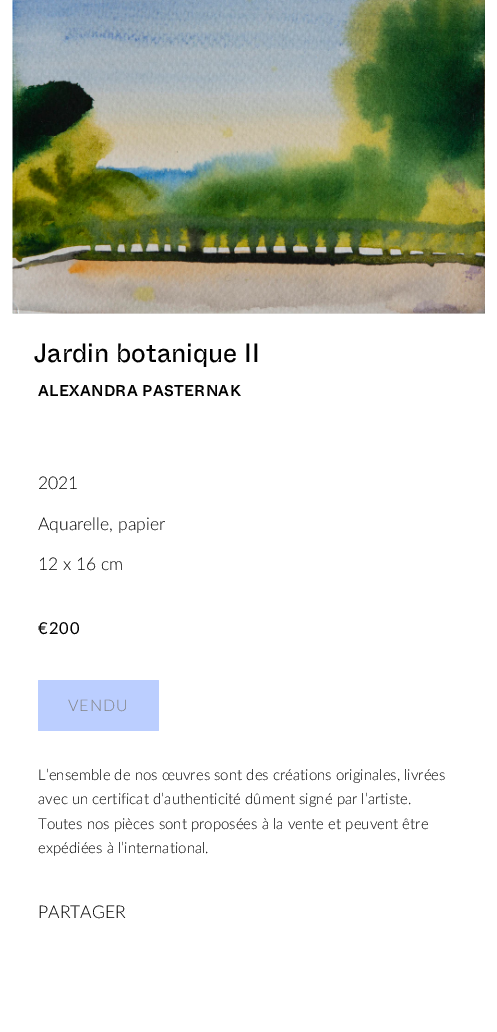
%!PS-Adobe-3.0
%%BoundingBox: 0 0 497 1032
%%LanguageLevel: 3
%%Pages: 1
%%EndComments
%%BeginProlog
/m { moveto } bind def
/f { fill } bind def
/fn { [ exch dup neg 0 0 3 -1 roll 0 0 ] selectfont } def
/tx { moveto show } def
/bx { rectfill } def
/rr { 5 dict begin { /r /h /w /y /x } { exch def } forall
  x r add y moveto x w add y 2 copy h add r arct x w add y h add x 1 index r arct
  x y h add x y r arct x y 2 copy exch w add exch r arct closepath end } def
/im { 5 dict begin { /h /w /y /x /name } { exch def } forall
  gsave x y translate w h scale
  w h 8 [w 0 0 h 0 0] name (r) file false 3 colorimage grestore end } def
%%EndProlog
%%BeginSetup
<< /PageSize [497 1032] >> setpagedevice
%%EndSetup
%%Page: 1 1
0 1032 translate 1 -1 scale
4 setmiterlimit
1 setgray
0 0 497 1032 bx
0.902 setgray
13 313 472 1 bx
(image0.raw) 12 0 473 314 im
/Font-Regular 26.25 fn
0 setgray
(Jardin botanique II) 34 362 tx
/Font-Bold 15 fn
38 396 m 0.75 0 (ALEXANDRA PASTERNAK) ashow
/Lato-Light 17.5 fn
(2021) 38 489 tx
(Aquarelle, papier) 38 530 tx
(12 x 16 cm) 38 570 tx
/Lato-Regular 16.5 fn
38 634 m 1 0 (€200) ashow
0.733 0.808 1 setrgbcolor
38 680 121 51 1 rr f
/Lato-Light 16 fn
0.502 setgray
68 711 m 1 0 (VENDU) ashow
/Lato-Light 15 fn
0 setgray
(L’ensemble de nos œuvres sont des créations originales, livrées) 38 780 tx
(avec un certificat d’authenticité dûment signé par l’artiste.) 38 804 tx
(Toutes nos pièces sont proposées à la vente et peuvent être) 38 829 tx
(expédiées à l’international.) 38 853 tx
/Lato-Light 17.5 fn
(PARTAGER) 38 918 tx
showpage
%%EOF
